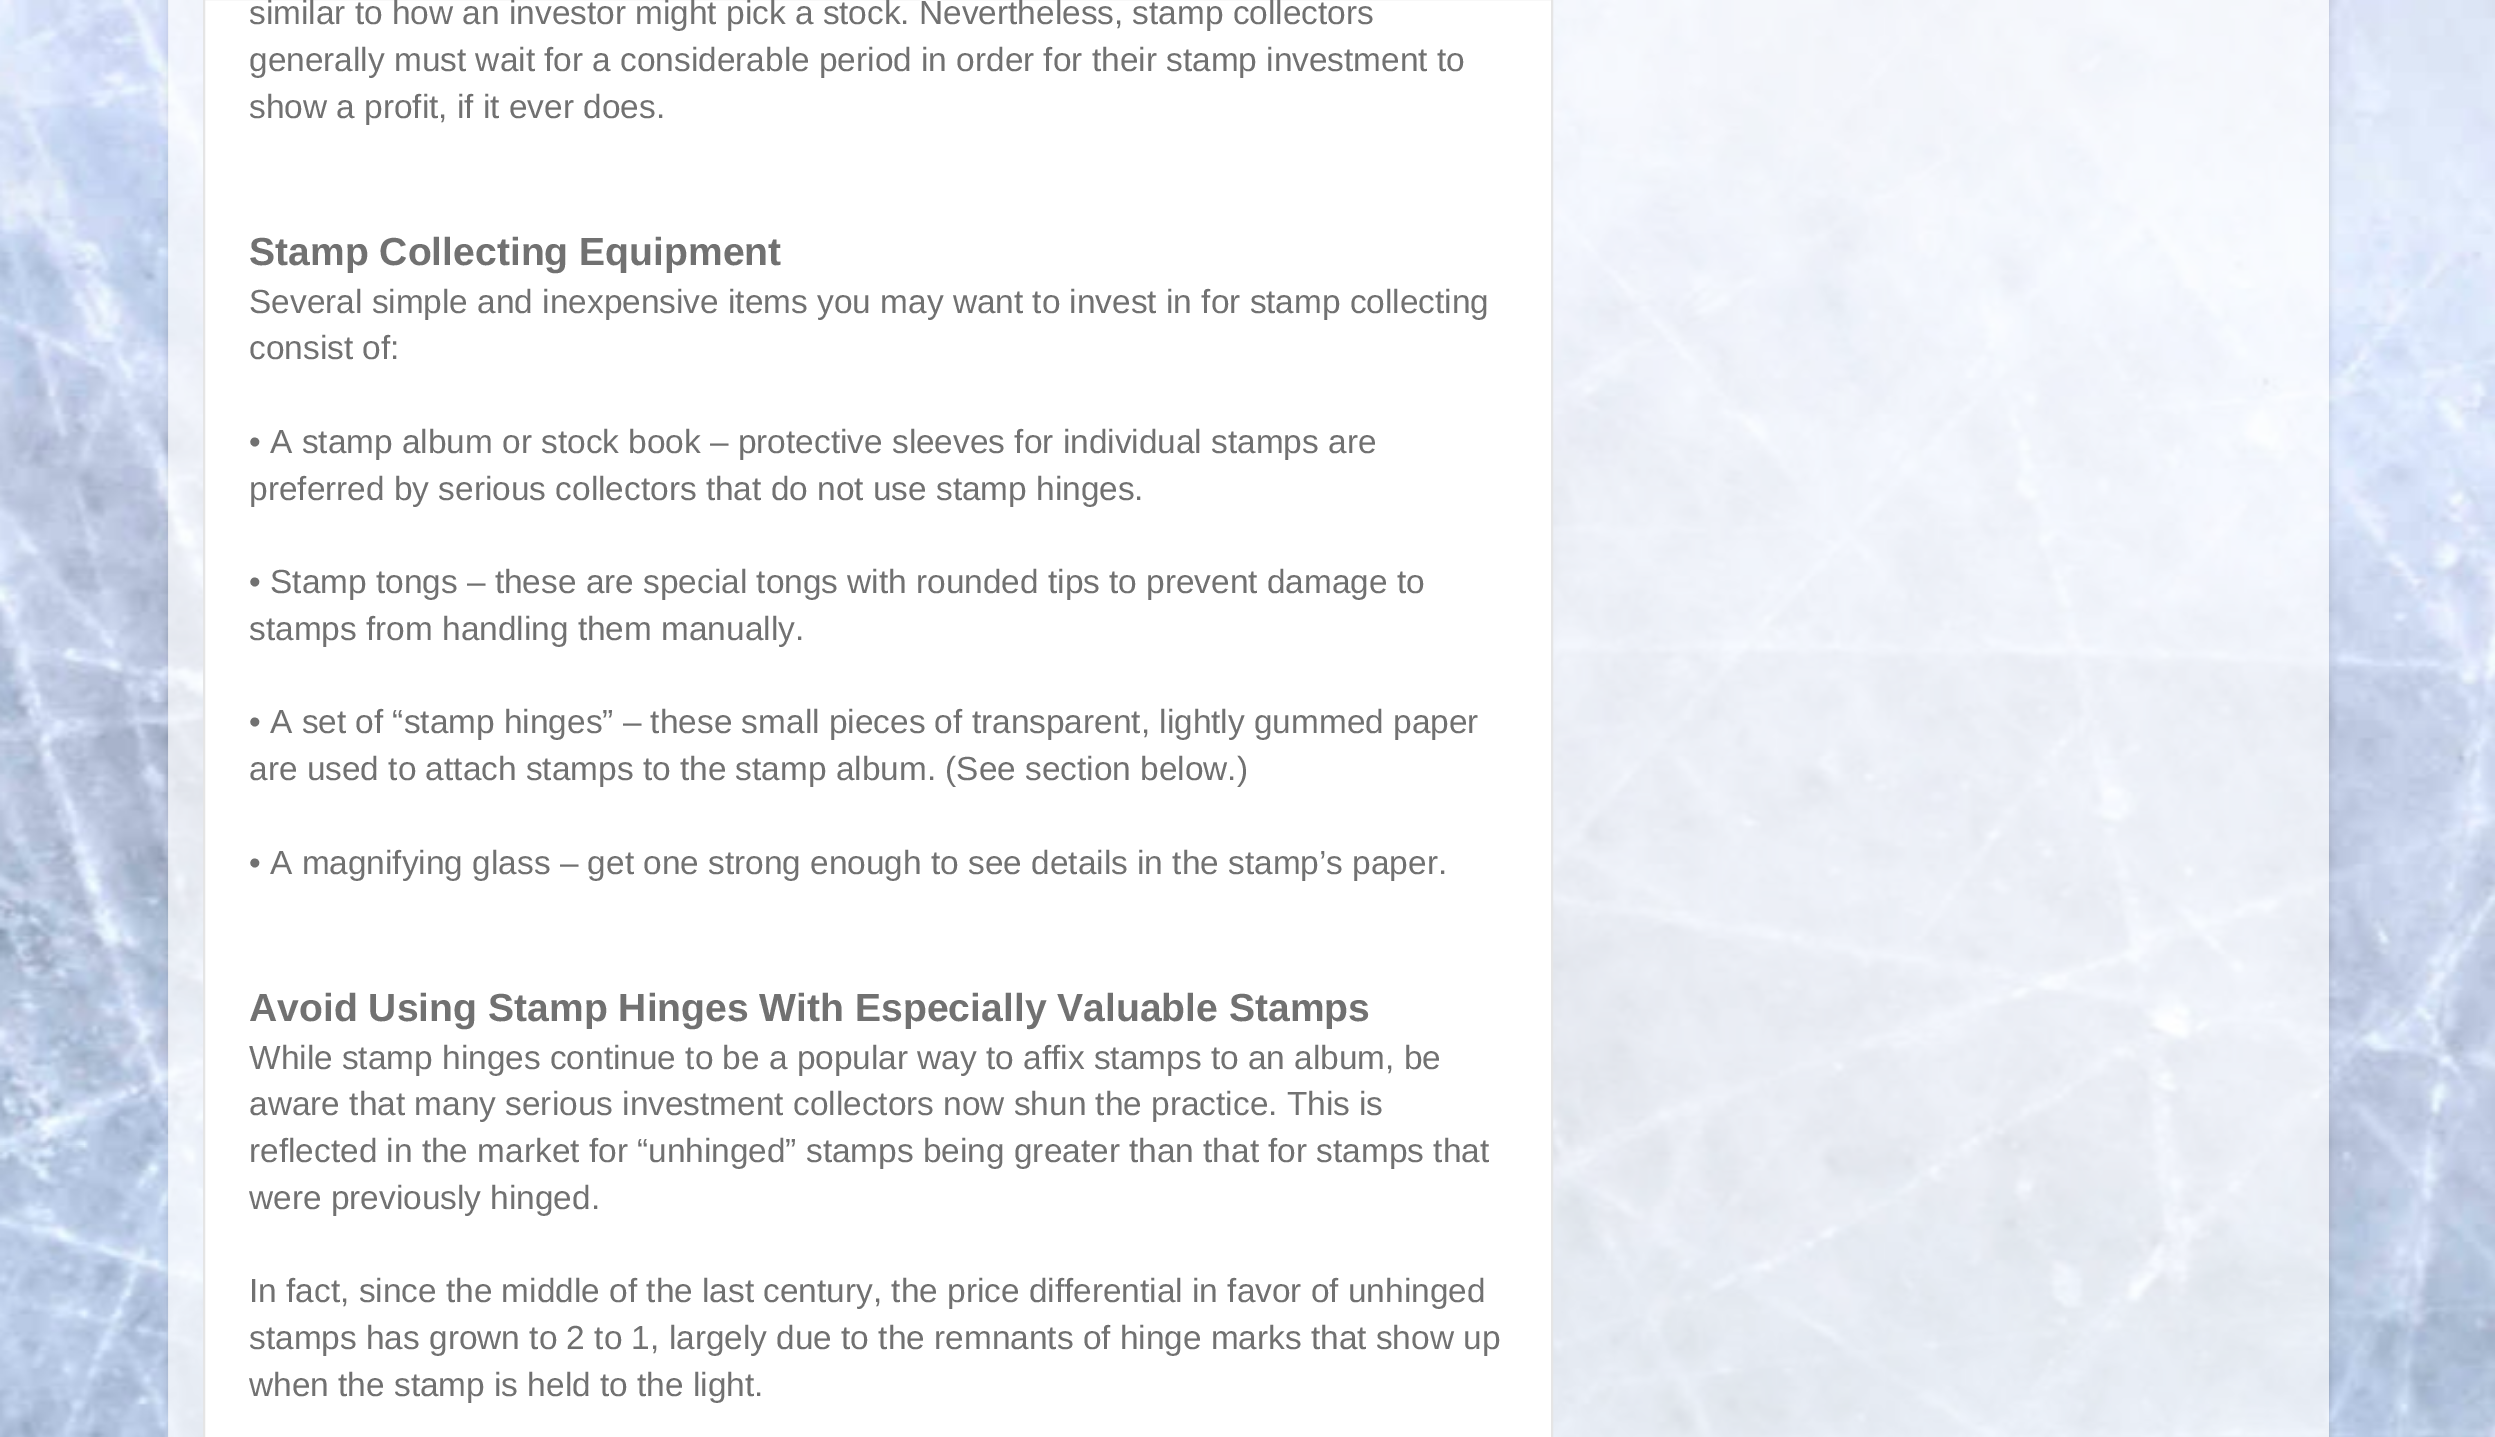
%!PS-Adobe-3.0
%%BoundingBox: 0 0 2495 1437
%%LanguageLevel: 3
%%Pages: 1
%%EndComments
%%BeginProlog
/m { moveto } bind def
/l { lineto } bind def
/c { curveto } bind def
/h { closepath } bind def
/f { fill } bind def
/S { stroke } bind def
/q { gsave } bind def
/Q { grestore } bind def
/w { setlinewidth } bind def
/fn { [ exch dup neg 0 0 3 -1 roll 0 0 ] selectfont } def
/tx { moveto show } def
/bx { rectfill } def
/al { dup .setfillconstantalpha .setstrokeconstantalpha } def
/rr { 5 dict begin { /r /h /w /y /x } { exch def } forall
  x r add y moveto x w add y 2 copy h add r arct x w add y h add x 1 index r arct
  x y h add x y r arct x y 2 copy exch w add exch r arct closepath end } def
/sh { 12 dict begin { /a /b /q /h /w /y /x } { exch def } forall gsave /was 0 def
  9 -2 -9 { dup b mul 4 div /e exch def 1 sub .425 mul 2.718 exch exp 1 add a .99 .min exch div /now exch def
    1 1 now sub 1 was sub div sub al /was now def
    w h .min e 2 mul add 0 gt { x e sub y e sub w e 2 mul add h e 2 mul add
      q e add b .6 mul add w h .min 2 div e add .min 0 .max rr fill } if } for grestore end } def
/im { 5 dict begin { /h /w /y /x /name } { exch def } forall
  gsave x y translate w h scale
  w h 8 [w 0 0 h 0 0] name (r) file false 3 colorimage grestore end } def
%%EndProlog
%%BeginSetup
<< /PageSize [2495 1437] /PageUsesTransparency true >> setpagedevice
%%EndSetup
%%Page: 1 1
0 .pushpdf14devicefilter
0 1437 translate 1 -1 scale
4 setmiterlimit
1 setgray
0 0 2495 1437 bx
(image0.raw) 0 0 2495 1437 im
q
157 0 m 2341 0 l 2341 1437 l 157 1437 l h 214 -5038 m 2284 -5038 l 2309 -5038 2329 -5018 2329 -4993 c 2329 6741 l 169 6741 l 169 -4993 l 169 -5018 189 -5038 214 -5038 c h eoclip newpath
0 setgray
169 -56 2160 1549 45 3.5 0.15 sh
Q
0.7 al
168 0 2161 1437 bx
1 al
204 -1 m 1552 -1 l 1552 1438 l 204 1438 l h q f Q
0.898 setgray
2 w
S
/LiberationSans-Regular 33.4 fn
0.443 setgray
(similar to how an investor might pick a stock. Nevertheless, stamp collectors) 249 24 tx
(generally must wait for a considerable period in order for their stamp investment to) 249 71 tx
(show a profit, if it ever does.) 249 118 tx
/LiberationSans-Bold 39.1 fn
(Stamp Collecting Equipment) 249 265 tx
/LiberationSans-Regular 33.4 fn
(Several simple and inexpensive items you may want to invest in for stamp collecting) 249 313 tx
(consist of:) 249 359 tx
(• A stamp album or stock book – protective sleeves for individual stamps are) 249 453 tx
(preferred by serious collectors that do not use stamp hinges.) 249 500 tx
(• Stamp tongs – these are special tongs with rounded tips to prevent damage to) 249 593 tx
(stamps from handling them manually.) 249 640 tx
(• A set of “stamp hinges” – these small pieces of transparent, lightly gummed paper) 249 733 tx
(are used to attach stamps to the stamp album. \(See section below.\)) 249 780 tx
(• A magnifying glass – get one strong enough to see details in the stamp’s paper.) 249 874 tx
/LiberationSans-Bold 39.1 fn
(Avoid Using Stamp Hinges With Especially Valuable Stamps) 249 1021 tx
/LiberationSans-Regular 33.4 fn
(While stamp hinges continue to be a popular way to affix stamps to an album, be) 249 1069 tx
(aware that many serious investment collectors now shun the practice. This is) 249 1115 tx
(reflected in the market for “unhinged” stamps being greater than that for stamps that) 249 1162 tx
(were previously hinged.) 249 1209 tx
(In fact, since the middle of the last century, the price differential in favor of unhinged) 249 1302 tx
(stamps has grown to 2 to 1, largely due to the remnants of hinge marks that show up) 249 1349 tx
(when the stamp is held to the light.) 249 1396 tx
.poppdf14devicefilter showpage
%%EOF
